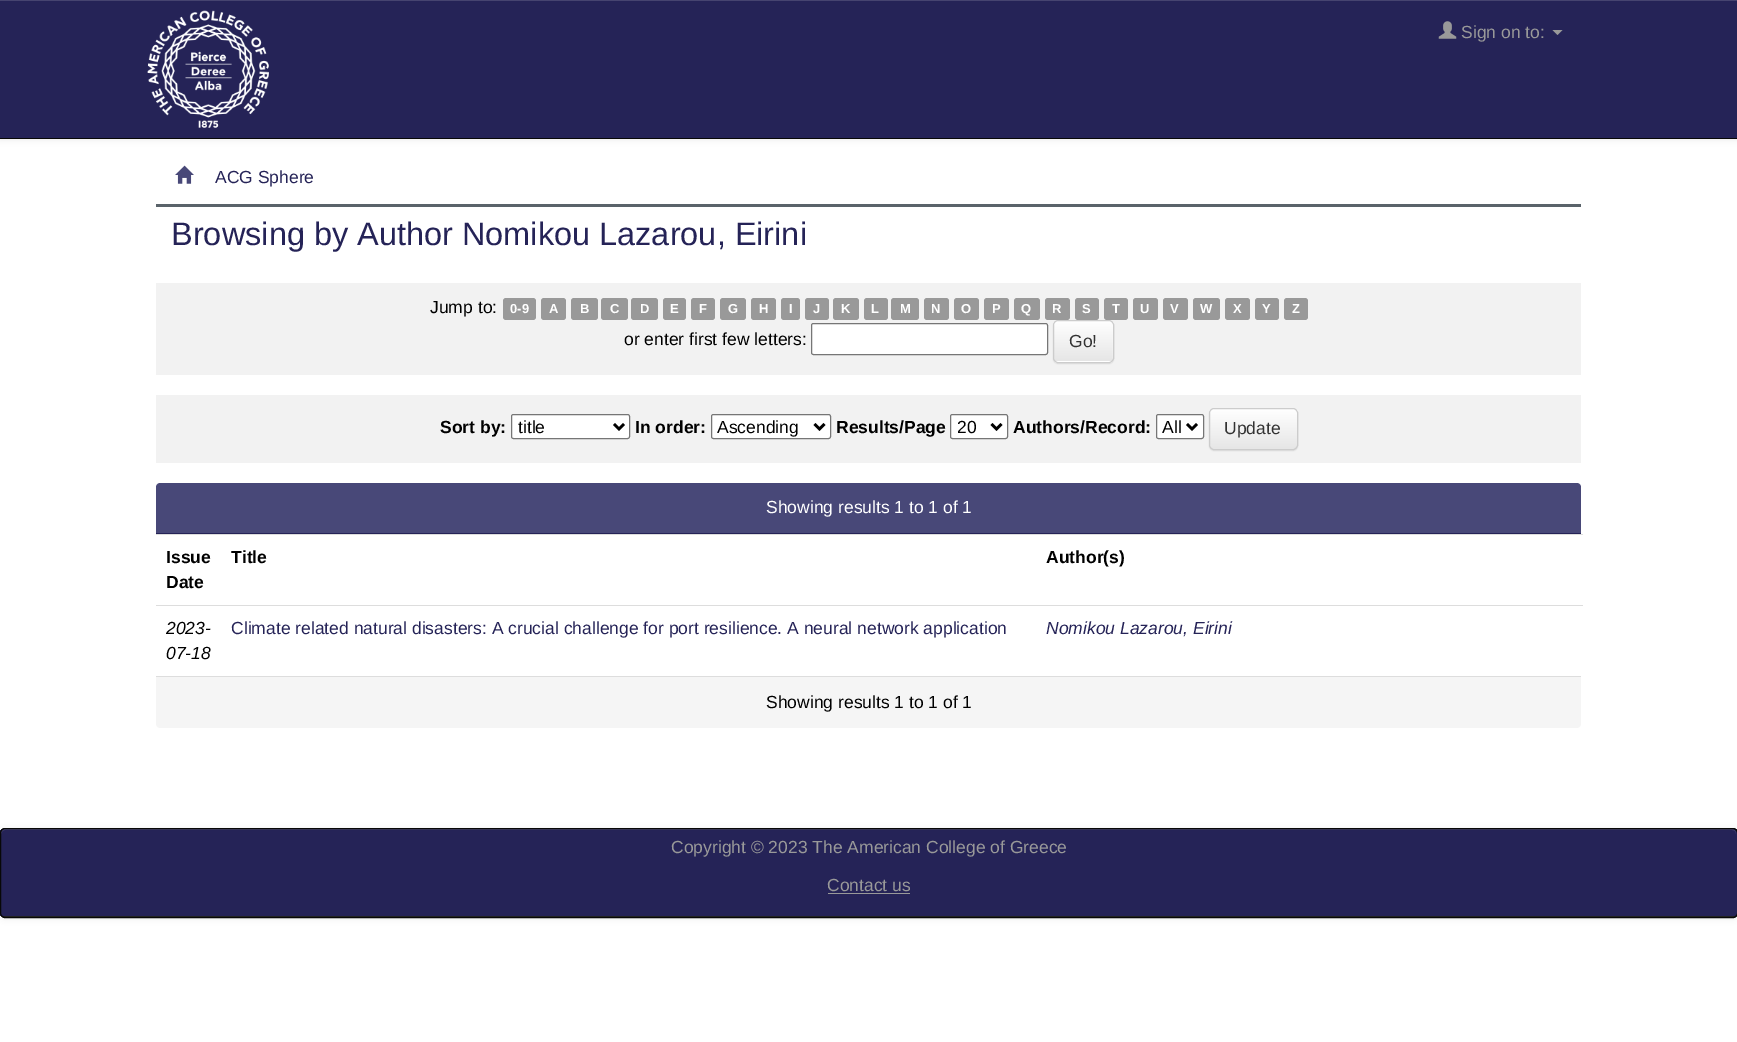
%!PS-Adobe-3.0
%%BoundingBox: 0 0 1737 1042
%%LanguageLevel: 3
%%Pages: 1
%%EndComments
%%BeginProlog
/m { moveto } bind def
/l { lineto } bind def
/c { curveto } bind def
/h { closepath } bind def
/f { fill } bind def
/S { stroke } bind def
/q { gsave } bind def
/Q { grestore } bind def
/w { setlinewidth } bind def
/fn { [ exch dup neg 0 0 3 -1 roll 0 0 ] selectfont } def
/tx { moveto show } def
/bx { rectfill } def
/al { dup .setfillconstantalpha .setstrokeconstantalpha } def
/rr { 5 dict begin { /r /h /w /y /x } { exch def } forall
  x r add y moveto x w add y 2 copy h add r arct x w add y h add x 1 index r arct
  x y h add x y r arct x y 2 copy exch w add exch r arct closepath end } def
/sh { 12 dict begin { /a /b /q /h /w /y /x } { exch def } forall gsave /was 0 def
  9 -2 -9 { dup b mul 4 div /e exch def 1 sub .425 mul 2.718 exch exp 1 add a .99 .min exch div /now exch def
    1 1 now sub 1 was sub div sub al /was now def
    w h .min e 2 mul add 0 gt { x e sub y e sub w e 2 mul add h e 2 mul add
      q e add b .6 mul add w h .min 2 div e add .min 0 .max rr fill } if } for grestore end } def
/im { 5 dict begin { /h /w /y /x /name } { exch def } forall
  gsave x y translate w h scale
  w h 8 [w 0 0 h 0 0] name (r) file false 3 colorimage grestore end } def
%%EndProlog
%%BeginSetup
<< /PageSize [1737 1042] /PageUsesTransparency true >> setpagedevice
%%EndSetup
%%Page: 1 1
0 .pushpdf14devicefilter
0 1042 translate 1 -1 scale
4 setmiterlimit
1 setgray
0 0 1737 1042 bx
0 setgray
0 1 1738 139 0 3 0.07 sh
0.145 0.137 0.341 setrgbcolor
0 1 1737 137 bx
0.275 0.267 0.439 setrgbcolor
0 0 1737 1 bx
0.031 setgray
0 138 1737 1 bx
(image0.raw) 147 10 122 118 im
(image1.raw) 1438 21 19 18 im
/LiberationSans-Regular 17.5 fn
0.6 setgray
(Sign on to:) 1461 38 tx
1552.5 30 m 1562.5 30 l 1557.5 35 l h f
0.353 0.388 0.416 setrgbcolor
156 204 1425 3 bx
(image2.raw) 175 165 19 19 im
0.145 0.137 0.341 setrgbcolor
(ACG Sphere) 215 183 tx
/LiberationSans-Regular 32.5 fn
(Browsing by Author Nomikou Lazarou, Eirini) 171 245 tx
0.949 setgray
156 283 1425 92 bx
/LiberationSans-Regular 17.5 fn
0 setgray
(Jump to:) 430 313 tx
0.6 setgray
503 298 33 22 3 rr f
/LiberationSans-Bold 13 fn
1 setgray
(0-9) 510 313 tx
0.6 setgray
541 298 25 22 3 rr f
1 setgray
(A) 549 313 tx
0.6 setgray
571 298 27 22 3 rr f
1 setgray
(B) 580 313 tx
0.6 setgray
601 298 27 22 3 rr f
1 setgray
(C) 610 313 tx
0.6 setgray
631 298 27 22 3 rr f
1 setgray
(D) 640 313 tx
0.6 setgray
663 298 23 22 3 rr f
1 setgray
(E) 670 313 tx
0.6 setgray
691 298 24 22 3 rr f
1 setgray
(F) 699 313 tx
0.6 setgray
720 298 26 22 3 rr f
1 setgray
(G) 728 313 tx
0.6 setgray
751 298 25 22 3 rr f
1 setgray
(H) 759 313 tx
0.6 setgray
781 298 19 22 3 rr f
1 setgray
(I) 789 313 tx
0.6 setgray
805 298 24 22 3 rr f
1 setgray
(J) 813 313 tx
0.6 setgray
833 298 26 22 3 rr f
1 setgray
(K) 841 313 tx
0.6 setgray
864 298 24 22 3 rr f
1 setgray
(L) 871 313 tx
0.6 setgray
891 298 28 22 3 rr f
1 setgray
(M) 900 313 tx
0.6 setgray
924 298 25 22 3 rr f
1 setgray
(N) 931 313 tx
0.6 setgray
954 298 25 22 3 rr f
1 setgray
(O) 961 313 tx
0.6 setgray
984 298 25 22 3 rr f
1 setgray
(P) 992 313 tx
0.6 setgray
1014 298 26 22 3 rr f
1 setgray
(Q) 1021 313 tx
0.6 setgray
1045 298 25 22 3 rr f
1 setgray
(R) 1052 313 tx
0.6 setgray
1075 298 24 22 3 rr f
1 setgray
(S) 1082 313 tx
0.6 setgray
1104 298 24 22 3 rr f
1 setgray
(T) 1112 313 tx
0.6 setgray
1133 298 25 22 3 rr f
1 setgray
(U) 1140 313 tx
0.6 setgray
1163 298 25 22 3 rr f
1 setgray
(V) 1170 313 tx
0.6 setgray
1193 298 27 22 3 rr f
1 setgray
(W) 1200 313 tx
0.6 setgray
1225 298 25 22 3 rr f
1 setgray
(X) 1233 313 tx
0.6 setgray
1255 298 24 22 3 rr f
1 setgray
(Y) 1262 313 tx
0.6 setgray
1284 298 24 22 3 rr f
1 setgray
(Z) 1292 313 tx
/LiberationSans-Regular 17.5 fn
0 setgray
(or enter first few letters:) 624 345 tx
1 setgray
811.5 323.5 236 31 2 rr q f Q
0.463 setgray
S
0 setgray
1053 321 61 43 5 0.5 0.07 sh
1 setgray
1053 320 61 43 5 rr f
q
1053 320 61 43 5 rr clip newpath
q 1053 321 m 1114 321 l 1114 361 l 1053 361 l h clip newpath
<< /ShadingType 2 /ColorSpace /DeviceRGB /Coords [1083 321 1083 361] /Extend [true true] /Function << /FunctionType 2 /Domain [0 1] /C0 [1 1 1] /C1 [0.902 0.902 0.902] /N 1 >> >> shfill Q
Q
0.15 al
1058 322 m 1100 322 l 1115 322 1112 322 1112 337 c 1112 360 l 1114 358 1113 354 1113 352 c 1113 341 l 1113 317 1117 321 1092 321 c 1066 321 l 1061 321 1054 319 1054 326 c 1054 324 1055 322 1058 322 c h f
1 al
0.8 setgray
1053.5 320.5 60 42 4.5 rr S
0.2 setgray
(Go!) 1069 347 tx
0.949 setgray
156 395 1425 68 bx
/LiberationSans-Bold 17.5 fn
0 setgray
(Sort by:) 440 433 tx
1 setgray
511.5 414.5 118 24 2 rr q f Q
0.463 setgray
S
0 setgray
2.5 w
614 424 m 619 429 l 624 424 l S
/LiberationSans-Regular 17.5 fn
(title) 518 433 tx
/LiberationSans-Bold 17.5 fn
(In order:) 635 433 tx
1 setgray
711.5 414.5 119 24 2 rr q f Q
0.463 setgray
1 w
S
0 setgray
2.5 w
814.5 424 m 819.5 429 l 824.5 424 l S
/LiberationSans-Regular 17.5 fn
(Ascending) 717 433 tx
/LiberationSans-Bold 17.5 fn
(Results/Page) 836 433 tx
1 setgray
950.5 414.5 57 24 2 rr q f Q
0.463 setgray
1 w
S
0 setgray
2.5 w
991.5 424 m 996.5 429 l 1001.5 424 l S
/LiberationSans-Regular 17.5 fn
(20) 957 433 tx
/LiberationSans-Bold 17.5 fn
(Authors/Record:) 1013 433 tx
1 setgray
1156.5 414.5 47 24 2 rr q f Q
0.463 setgray
1 w
S
0 setgray
2.5 w
1187 424 m 1192 429 l 1197 424 l S
/LiberationSans-Regular 17.5 fn
(All) 1162 433 tx
1209 409 89 42 5 0.5 0.07 sh
q
1209 408 89 42 5 rr clip newpath
q 1209 409 m 1298 409 l 1298 449 l 1209 449 l h clip newpath
<< /ShadingType 2 /ColorSpace /DeviceRGB /Coords [1253 409 1253 449] /Extend [true true] /Function << /FunctionType 2 /Domain [0 1] /C0 [1 1 1] /C1 [0.902 0.902 0.902] /N 1 >> >> shfill Q
Q
0.8 setgray
1 w
1209.5 408.5 88 41 4.5 rr S
0.2 setgray
(Update) 1224 434 tx
0.282 0.282 0.471 setrgbcolor
160 483 m 1577 483 l 1579 483 1581 485 1581 487 c 1581 534 l 156 534 l 156 487 l 156 485 158 483 160 483 c h f
0.145 0.137 0.341 setrgbcolor
156 533 1425 1 bx
1 setgray
(Showing results 1 to 1 of 1) 766 513 tx
/LiberationSans-Bold 17.5 fn
0 setgray
(Issue) 166 563 tx
(Date) 166 588 tx
(Title) 231 563 tx
0.867 setgray
156 534 1427 1 bx
0 setgray
(Author\(s\)) 1046 563 tx
/LiberationSans-Italic 17.5 fn
(2023-) 166 634 tx
(07-18) 166 659 tx
/LiberationSans-Regular 17.5 fn
0.145 0.137 0.341 setrgbcolor
(Climate related natural disasters: A crucial challenge for port resilience. A neural network application) 231 634 tx
0.867 setgray
156 605 1427 1 bx
/LiberationSans-Italic 17.5 fn
0.145 0.137 0.341 setrgbcolor
(Nomikou Lazarou, Eirini) 1046 634 tx
0.961 setgray
156 676 m 1581 676 l 1581 724 l 1581 726 1579 728 1577 728 c 160 728 l 158 728 156 726 156 724 c h f
0.867 setgray
156 676 1425 1 bx
/LiberationSans-Regular 17.5 fn
0 setgray
(Showing results 1 to 1 of 1) 766 708 tx
0 829 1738 90 5 3 0.07 sh
0.133 setgray
0 828 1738 90 5 rr f
q
0 828 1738 90 5 rr clip newpath
0.145 0.137 0.341 setrgbcolor
0 829 1737 87 bx
Q
0.275 0.267 0.439 setrgbcolor
5 830 m 1732 830 l 1735 830 1736 832 1736 834 c 1736 833 l 1736 831 1734 829 1732 829 c 5 829 l 3 829 1 831 1 833 c 1 834 l 1 832 3 830 5 830 c h f
0.031 setgray
0.5 828.5 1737 89 4.5 rr S
0.6 setgray
(Copyright © 2023 The American College of Greece) 671 853 tx
(Contact us) 827 891 tx
828 893 82 1 bx
.poppdf14devicefilter showpage
%%EOF
